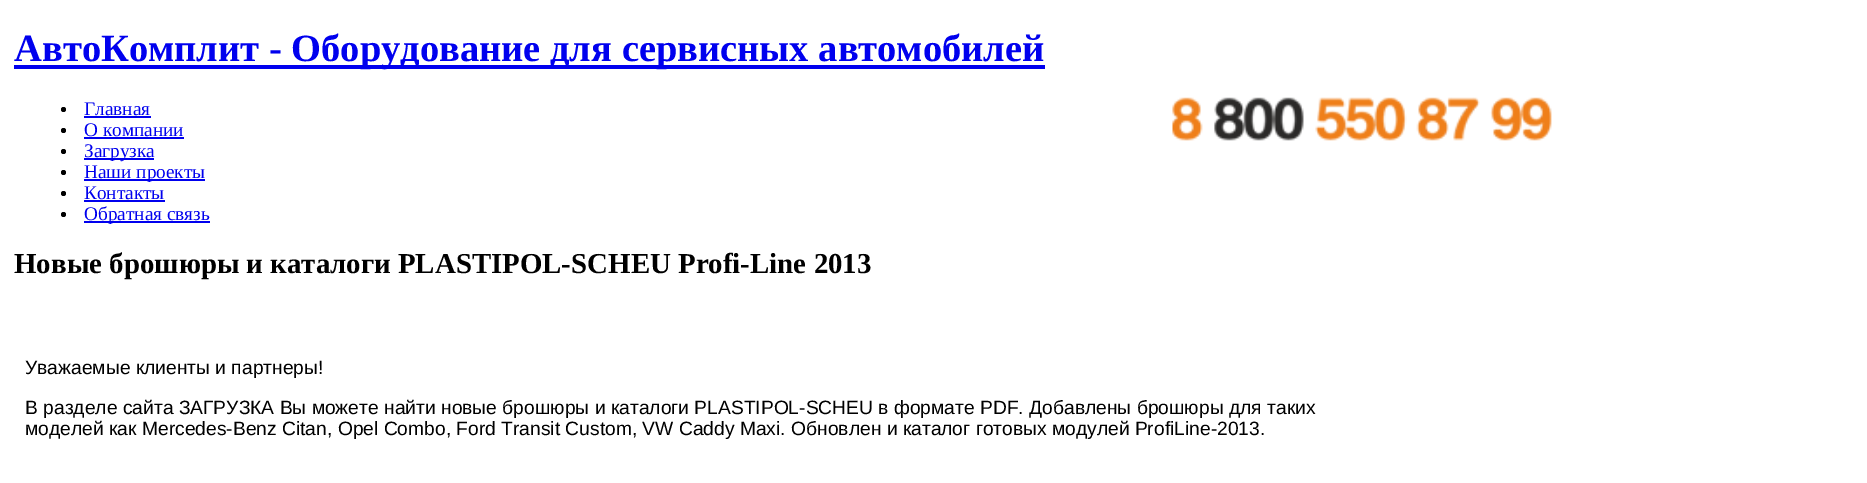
%!PS-Adobe-3.0
%%BoundingBox: 0 0 1867 483
%%LanguageLevel: 3
%%Pages: 1
%%EndComments
%%BeginProlog
/f { fill } bind def
/fn { [ exch dup neg 0 0 3 -1 roll 0 0 ] selectfont } def
/tx { moveto show } def
/bx { rectfill } def
/ci { newpath 0 360 arc closepath } def
/im { 5 dict begin { /h /w /y /x /name } { exch def } forall
  gsave x y translate w h scale
  w h 8 [w 0 0 h 0 0] name (r) file false 3 colorimage grestore end } def
%%EndProlog
%%BeginSetup
<< /PageSize [1867 483] >> setpagedevice
%%EndSetup
%%Page: 1 1
0 483 translate 1 -1 scale
4 setmiterlimit
1 setgray
0 0 1867 483 bx
0 0 0.933 setrgbcolor
14 65 1031 4 bx
/LiberationSerif-Bold 38.5 fn
(АвтоКомплит - Оборудование для сервисных автомобилей) 14 61 tx
(image0.raw) 1172 97 380 44 im
0 setgray
63.5 109.5 2.5 ci f
/LiberationSerif-Regular 19.25 fn
0 0 0.933 setrgbcolor
(Главная) 84 115 tx
84 116 67 2 bx
0 setgray
63.5 130.5 2.5 ci f
0 0 0.933 setrgbcolor
(О компании) 84 136 tx
84 137 100 2 bx
0 setgray
63.5 151.5 2.5 ci f
0 0 0.933 setrgbcolor
84 158 70 2 bx
(Загрузка) 84 157 tx
0 setgray
63.5 172.5 2.5 ci f
0 0 0.933 setrgbcolor
84 179 121 2 bx
(Наши проекты) 84 178 tx
0 setgray
63.5 193.5 2.5 ci f
0 0 0.933 setrgbcolor
(Контакты) 84 199 tx
84 200 81 2 bx
0 setgray
63.5 214.5 2.5 ci f
0 0 0.933 setrgbcolor
84 221 126 2 bx
(Обратная связь) 84 220 tx
/LiberationSerif-Bold 28.9 fn
0 setgray
(Новые брошюры и каталоги PLASTIPOL-SCHEU Profi-Line 2013) 14 273 tx
/LiberationSans-Regular 19.25 fn
(Уважаемые клиенты и партнеры!) 25 374 tx
(В разделе сайта ЗАГРУЗКА Вы можете найти новые брошюры и каталоги PLASTIPOL-SCHEU в формате PDF. Добавлены брошюры для таких) 25 414 tx
(моделей как Mercedes-Benz Citan, Opel Combo, Ford Transit Custom, VW Caddy Maxi. Обновлен и каталог готовых модулей ProfiLine-2013.) 25 435 tx
showpage
%%EOF
